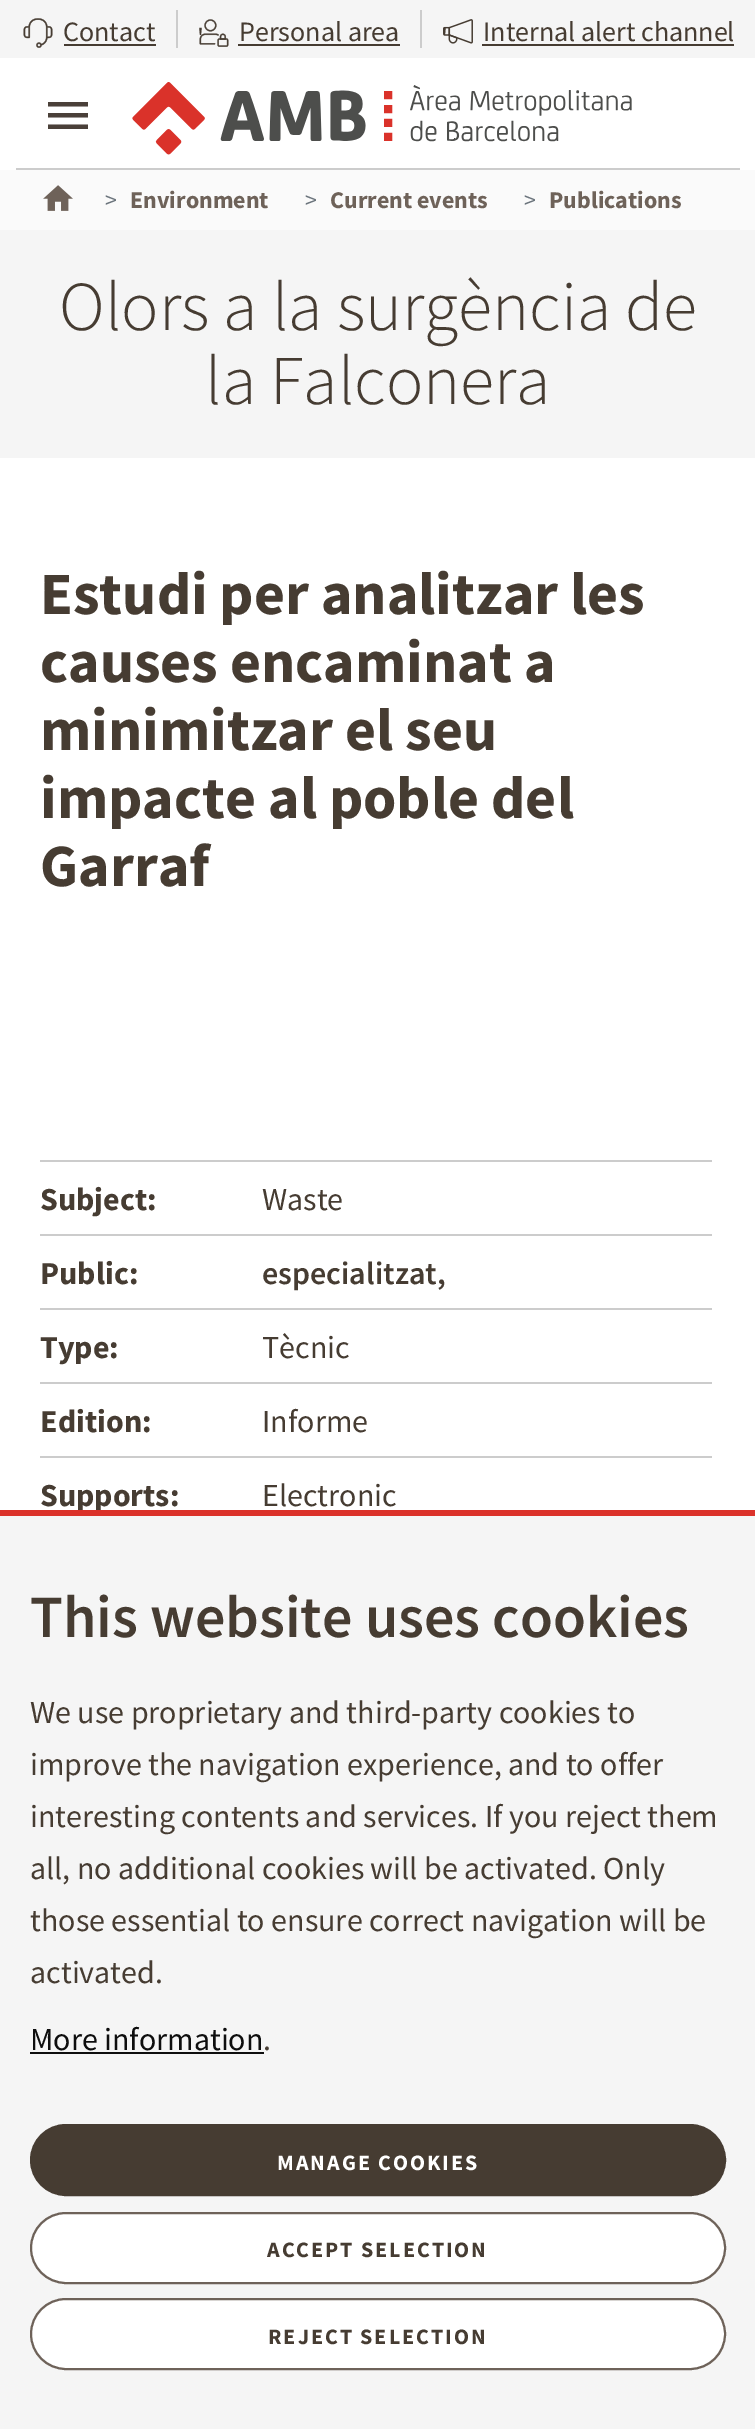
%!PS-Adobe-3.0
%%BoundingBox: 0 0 755 2429
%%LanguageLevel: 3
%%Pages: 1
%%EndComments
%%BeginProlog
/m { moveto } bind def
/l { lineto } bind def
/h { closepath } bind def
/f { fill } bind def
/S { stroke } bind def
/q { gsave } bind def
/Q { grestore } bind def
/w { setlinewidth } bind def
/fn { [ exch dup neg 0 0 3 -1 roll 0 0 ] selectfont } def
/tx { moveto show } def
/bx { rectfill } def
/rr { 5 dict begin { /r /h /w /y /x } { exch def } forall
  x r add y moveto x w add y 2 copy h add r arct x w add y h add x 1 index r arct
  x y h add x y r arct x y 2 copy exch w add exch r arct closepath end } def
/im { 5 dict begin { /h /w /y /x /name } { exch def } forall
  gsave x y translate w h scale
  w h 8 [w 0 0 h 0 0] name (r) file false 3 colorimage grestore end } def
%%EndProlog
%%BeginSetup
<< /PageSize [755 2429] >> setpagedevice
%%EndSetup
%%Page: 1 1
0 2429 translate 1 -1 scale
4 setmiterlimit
1 setgray
0 0 755 2429 bx
0.961 setgray
0 0 755 58 bx
0.8 setgray
176 10 2 38 bx
(image0.raw) 23 18 30 30 im
/SourceSansPro-Regular 28 fn
0.275 0.235 0.196 setrgbcolor
(Contact) 63 41 tx
64 44 92 2 bx
0.8 setgray
420 10 2 38 bx
(image1.raw) 199 19 30 28 im
0.275 0.235 0.196 setrgbcolor
(') 197 47 tx
(Personal area) 239 41 tx
238 44 162 2 bx
(image2.raw) 443 19 30 25 im
(') 441 47 tx
(Internal alert channel) 483 41 tx
482 44 252 2 bx
0.8 setgray
16 168 724 2 bx
0.29 0.251 0.224 setrgbcolor
48 129 m 48 124.5 l 88 124.5 l 88 129 l h 48 117.5 m 48 113 l 88 113 l 88 117.5 l h 48 102 m 88 102 l 88 106.5 l 48 106.5 l h f
(image3.raw) 132 82 500 73 im
0.98 setgray
0 170 755 60 bx
(image4.raw) 43 185 30 26 im
/SourceSansPro-Regular 24 fn
0.424 0.459 0.49 setrgbcolor
(>) 105 208 tx
/SourceSansPro-Bold 24 fn
0.431 0.384 0.349 setrgbcolor
(Environment) 130 208 tx
/SourceSansPro-Regular 24 fn
0.424 0.459 0.49 setrgbcolor
(>) 305 208 tx
/SourceSansPro-Bold 24 fn
0.431 0.384 0.349 setrgbcolor
(Current events) 330 208 tx
/SourceSansPro-Regular 24 fn
0.424 0.459 0.49 setrgbcolor
(>) 524 208 tx
/SourceSansPro-Bold 24 fn
0.431 0.384 0.349 setrgbcolor
(Publications) 549 208 tx
0.961 setgray
0 230 755 228 bx
/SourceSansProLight-Light 70 fn
0.275 0.235 0.196 setrgbcolor
(Olors a la surgència de) 59 330 tx
(la Falconera) 205 404 tx
/SourceSansPro-Bold 60 fn
(Estudi per analitzar les) 40 614 tx
(causes encaminat a) 40 682 tx
(minimitzar el seu) 40 750 tx
(impacte al poble del) 40 818 tx
(Garraf) 40 886 tx
0.8 setgray
40 1160 672 2 bx
/SourceSansPro-Bold 32 fn
0.275 0.235 0.196 setrgbcolor
(Subject:) 40 1210 tx
/SourceSansPro-Regular 32 fn
(Waste) 262 1210 tx
0.8 setgray
40 1234 672 2 bx
/SourceSansPro-Bold 32 fn
0.275 0.235 0.196 setrgbcolor
(Public:) 40 1284 tx
/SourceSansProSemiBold-SemiBold 32 fn
(especialitzat,) 262 1284 tx
0.8 setgray
40 1308 672 2 bx
/SourceSansPro-Bold 32 fn
0.275 0.235 0.196 setrgbcolor
(Type:) 40 1358 tx
/SourceSansPro-Regular 32 fn
(Tècnic) 262 1358 tx
0.8 setgray
40 1382 672 2 bx
/SourceSansPro-Bold 32 fn
0.275 0.235 0.196 setrgbcolor
(Edition:) 40 1432 tx
/SourceSansPro-Regular 32 fn
(Informe) 262 1432 tx
0.8 setgray
40 1456 672 2 bx
/SourceSansPro-Bold 32 fn
0.275 0.235 0.196 setrgbcolor
(Supports:) 40 1506 tx
/SourceSansPro-Regular 32 fn
(Electronic) 262 1506 tx
0.961 setgray
0 1516 755 913 bx
0.859 0.196 0.165 setrgbcolor
0 1510 755 6 bx
/SourceSansProSemiBold-SemiBold 60 fn
0.275 0.235 0.196 setrgbcolor
(This website uses cookies) 30 1637 tx
/SourceSansPro-Regular 32 fn
(We use proprietary and third-party cookies to) 30 1723 tx
(improve the navigation experience, and to offer) 30 1775 tx
(interesting contents and services. If you reject them) 30 1827 tx
(all, no additional cookies will be activated. Only) 30 1879 tx
(those essential to ensure correct navigation will be) 30 1931 tx
(activated.) 30 1983 tx
0.055 setgray
(More information) 30 2050 tx
30 2052 234 2 bx
0.275 0.235 0.196 setrgbcolor
(.) 263 2050 tx
31 2125 694 70 35 rr q f Q
2 w
S
/SourceSansPro-Bold 22 fn
1 setgray
277 2170 m 2 0 (MANAGE COOKIES) ashow
31 2213 694 70 35 rr q f Q
0.431 0.384 0.349 setrgbcolor
S
0.275 0.235 0.196 setrgbcolor
267 2257 m 2 0 (ACCEPT SELECTION) ashow
1 setgray
31 2299 694 70 35 rr q f Q
0.431 0.384 0.349 setrgbcolor
S
0.275 0.235 0.196 setrgbcolor
268 2344 m 2 0 (REJECT SELECTION) ashow
showpage
%%EOF
